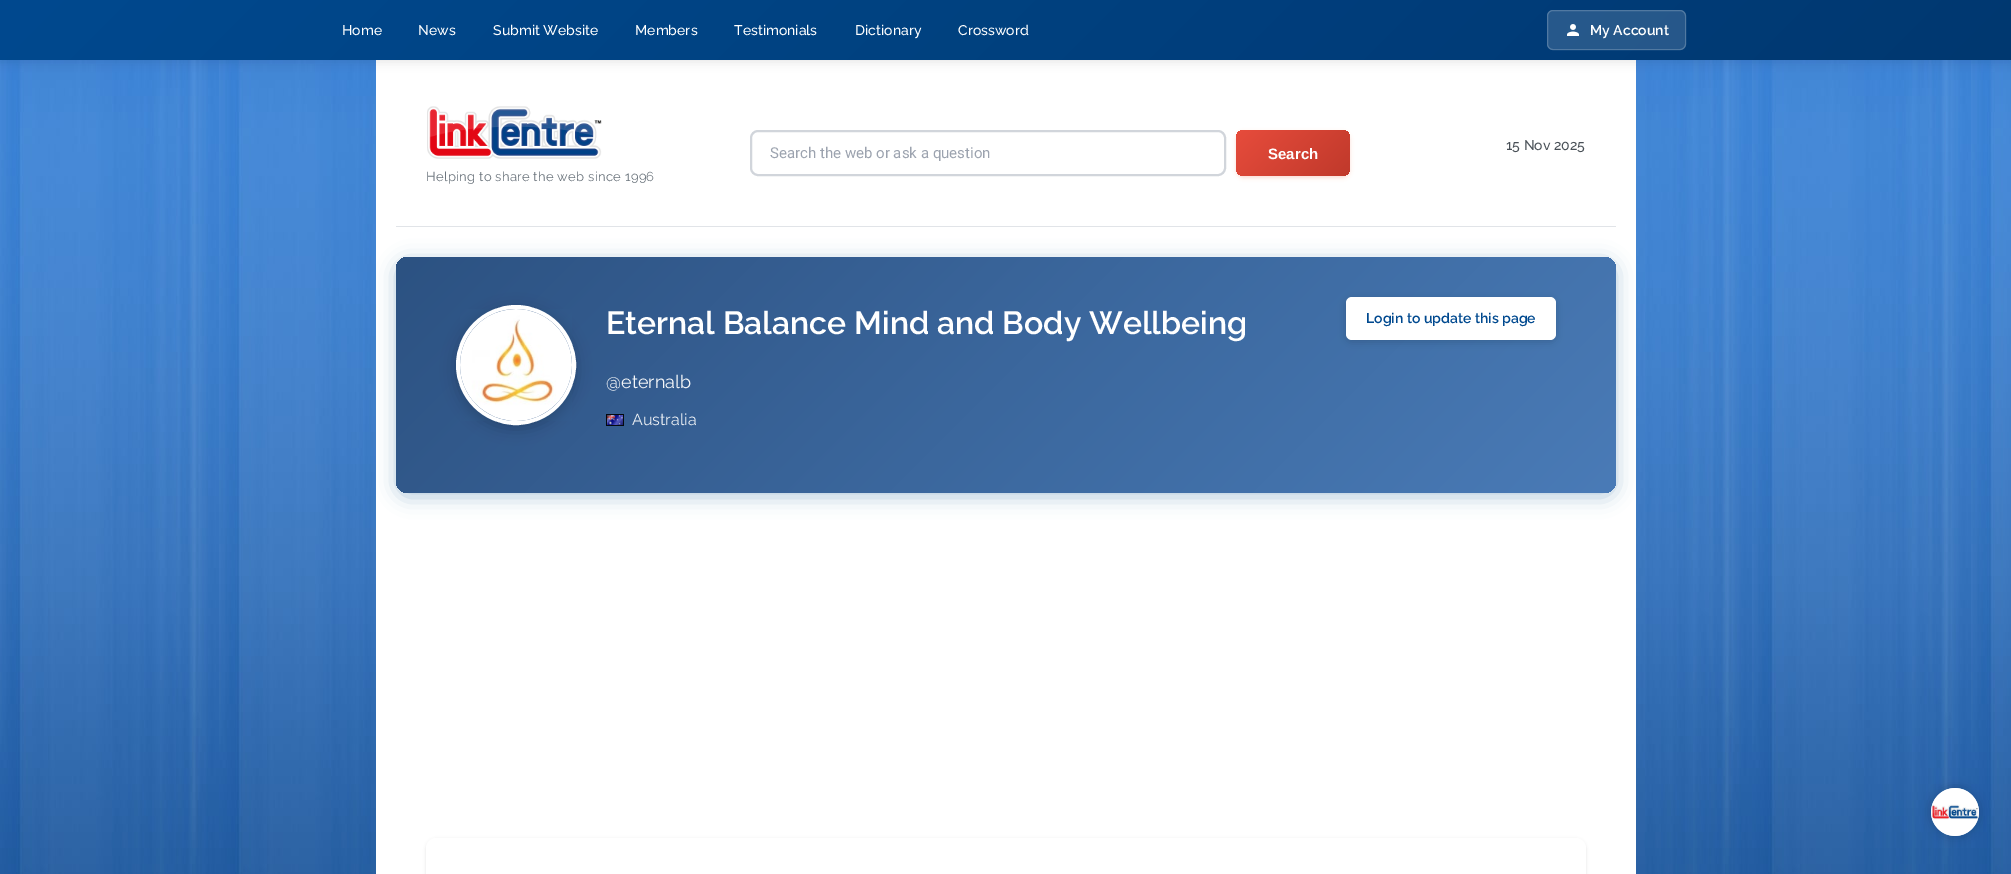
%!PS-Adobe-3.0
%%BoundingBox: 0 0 2011 874
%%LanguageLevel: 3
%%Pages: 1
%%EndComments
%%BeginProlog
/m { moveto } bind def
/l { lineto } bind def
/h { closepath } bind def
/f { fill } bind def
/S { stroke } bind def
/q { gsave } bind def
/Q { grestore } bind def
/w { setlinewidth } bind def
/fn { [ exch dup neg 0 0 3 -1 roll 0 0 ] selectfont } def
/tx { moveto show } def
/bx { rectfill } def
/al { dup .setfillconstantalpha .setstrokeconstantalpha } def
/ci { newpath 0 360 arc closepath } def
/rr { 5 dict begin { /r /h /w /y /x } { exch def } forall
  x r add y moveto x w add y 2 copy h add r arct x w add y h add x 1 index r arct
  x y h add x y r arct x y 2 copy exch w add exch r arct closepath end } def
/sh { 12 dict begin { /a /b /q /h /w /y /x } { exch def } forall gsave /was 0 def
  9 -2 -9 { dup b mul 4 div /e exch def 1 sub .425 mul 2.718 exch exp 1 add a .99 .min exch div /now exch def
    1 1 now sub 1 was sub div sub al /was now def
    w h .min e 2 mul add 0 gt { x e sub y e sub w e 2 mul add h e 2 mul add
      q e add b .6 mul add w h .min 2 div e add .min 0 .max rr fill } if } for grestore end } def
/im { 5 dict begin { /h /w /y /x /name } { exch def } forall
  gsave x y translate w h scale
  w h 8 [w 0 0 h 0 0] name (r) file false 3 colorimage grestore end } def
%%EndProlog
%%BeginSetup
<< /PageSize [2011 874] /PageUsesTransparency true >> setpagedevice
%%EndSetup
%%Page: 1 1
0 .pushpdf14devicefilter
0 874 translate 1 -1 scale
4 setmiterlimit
1 setgray
0 0 2011 874 bx
(image0.raw) 0 60 2011 814 im
376 60 1260 814 bx
0 setgray
0 2 2011 60 0 5 0.1 sh
q 0 0 m 2011 0 l 2011 60 l 0 60 l h clip newpath
<< /ShadingType 2 /ColorSpace /DeviceRGB /Coords [488 -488 1523 548] /Extend [true true] /Function << /FunctionType 2 /Domain [0 1] /C0 [0 0.286 0.561] /C1 [0 0.22 0.439] /N 1 >> >> shfill Q
/Raleway-Medium 14 fn
1 setgray
(Home) 342 35 tx
(News) 418 35 tx
(Submit Website) 493 35 tx
(Members) 635 35 tx
(Testimonials) 734 35 tx
(Dictionary) 855 35 tx
(Crossword) 958 35 tx
0.15 al
1547 10 139 40 6 rr f
0.2 al
1547.5 10.5 138 39 5.5 rr S
1 al
(image1.raw) 1567 24 12 12 im
/Raleway-SemiBold 14 fn
(My Account) 1590 35 tx
0.882 0.894 0.91 setrgbcolor
396 226 1220 1 bx
0.82 0.835 0.859 setrgbcolor
2 w
751 131 474 44 7 rr S
/Roboto-Regular 15 fn
0.612 0.639 0.686 setrgbcolor
(Search the web or ask a question) 770 158 tx
0.906 0.298 0.235 setrgbcolor
1236 132 114 46 8 2 0.2 sh
q 1236 130 114 46 8 rr clip newpath
<< /ShadingType 2 /ColorSpace /DeviceRGB /Coords [1253 113 1333 193] /Extend [true true] /Function << /FunctionType 2 /Domain [0 1] /C0 [0.906 0.298 0.235] /C1 [0.753 0.224 0.169] /N 1 >> >> shfill Q
/LiberationSans-Bold 15 fn
1 setgray
(Search) 1268 159 tx
/Raleway-Medium 14 fn
0.286 0.314 0.341 setrgbcolor
(15 Nov 2025) 1506 150 tx
(image2.raw) 427 106 175 53 im
/Raleway-Regular 13 fn
0.424 0.459 0.49 setrgbcolor
426 181 m 0.3 0 (Helping to share the web since 1996) ashow
0 0.286 0.561 setrgbcolor
396 261 1220 236 12 10 0.3 sh
q 396 257 1220 236 12 rr clip newpath
<< /ShadingType 2 /ColorSpace /DeviceRGB /Coords [642 11 1370 739] /Extend [true true] /Function << /FunctionType 2 /Domain [0 1] /C0 [0.173 0.322 0.51] /C1 [0.29 0.482 0.718] /N 1 >> >> shfill Q
0 setgray
456 309 120 120 60 7.5 0.2 sh
1 setgray
4 w
516 365 58 ci S
(image3.raw) 460 309 112 112 im
/Raleway-SemiBold 32 fn
(Eternal Balance Mind and Body Wellbeing) 606 334 tx
/Raleway-Regular 18 fn
0.961 0.969 0.976 setrgbcolor
(@eternalb) 606 388 tx
(image4.raw) 606 414 18 12 im
/Raleway-Regular 16 fn
0.922 0.937 0.957 setrgbcolor
(Australia) 632 425 tx
0 setgray
1346 299 210 43 6 4 0.15 sh
1 setgray
1346 297 210 43 6 rr f
/Raleway-SemiBold 14 fn
0 0.286 0.561 setrgbcolor
(Login to update this page) 1366 323 tx
0 setgray
426 839 1160 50 10 1.5 0.1 sh
1 setgray
426 838 1160 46 10 rr f
0 setgray
1931 788 48 48 24 5 0.2 sh
(image5.raw) 1931 788 48 48 im
.poppdf14devicefilter showpage
%%EOF
